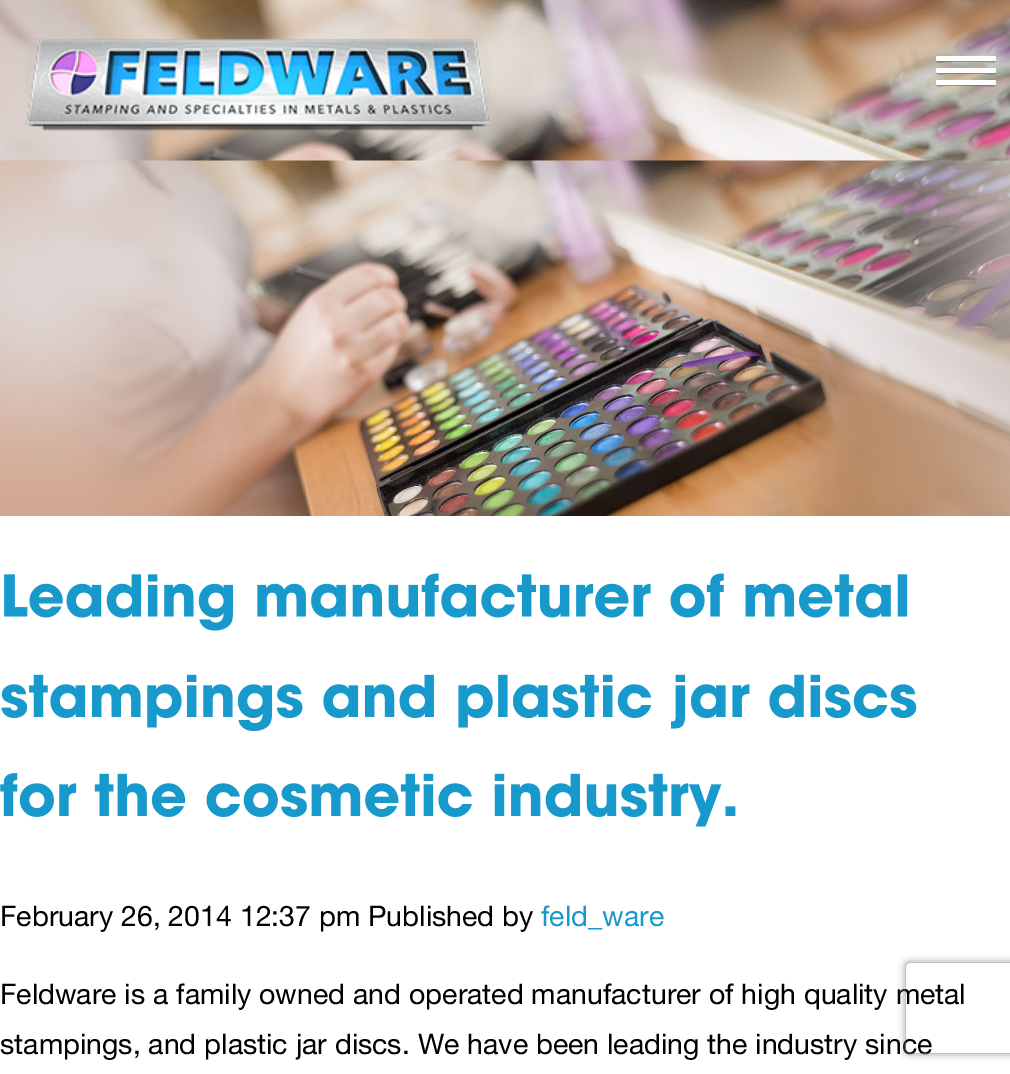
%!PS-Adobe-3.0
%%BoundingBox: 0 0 1010 1074
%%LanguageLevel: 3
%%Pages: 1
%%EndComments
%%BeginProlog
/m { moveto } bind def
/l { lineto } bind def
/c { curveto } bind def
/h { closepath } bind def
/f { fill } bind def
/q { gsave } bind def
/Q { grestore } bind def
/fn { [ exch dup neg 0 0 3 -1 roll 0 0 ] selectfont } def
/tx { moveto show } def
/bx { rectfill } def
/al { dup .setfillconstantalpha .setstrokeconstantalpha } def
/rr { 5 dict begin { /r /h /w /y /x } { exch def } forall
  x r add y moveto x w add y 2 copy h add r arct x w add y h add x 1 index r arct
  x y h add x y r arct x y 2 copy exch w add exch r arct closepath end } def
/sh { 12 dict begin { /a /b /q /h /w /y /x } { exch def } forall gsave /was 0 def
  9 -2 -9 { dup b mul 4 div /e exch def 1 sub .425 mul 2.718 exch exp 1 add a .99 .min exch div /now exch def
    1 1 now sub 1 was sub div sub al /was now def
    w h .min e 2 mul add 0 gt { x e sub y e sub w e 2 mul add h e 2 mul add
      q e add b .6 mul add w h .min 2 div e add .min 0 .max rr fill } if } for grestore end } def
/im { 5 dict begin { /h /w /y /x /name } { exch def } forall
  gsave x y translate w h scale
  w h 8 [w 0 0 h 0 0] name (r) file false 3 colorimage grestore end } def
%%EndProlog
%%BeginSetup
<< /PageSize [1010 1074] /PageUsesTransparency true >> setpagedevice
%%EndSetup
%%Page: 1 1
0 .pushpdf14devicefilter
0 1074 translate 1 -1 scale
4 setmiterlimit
1 setgray
0 0 1010 1074 bx
(image0.raw) 0 0 1010 161 im
0.25 al
0 setgray
936 58 m 936 65 940 62 947 62 c 985 62 l 992 62 996 65 996 58 c 996 59 995 60 994 60 c 938 60 l 937 60 936 59 936 58 c h f
1 al
1 setgray
936 56 60 5 1.5 rr f
0.25 al
0 setgray
936 70 m 936 77 940 74 947 74 c 985 74 l 992 74 996 77 996 70 c 996 71 995 72 994 72 c 938 72 l 937 72 936 71 936 70 c h f
1 al
1 setgray
936 68 60 5 1.5 rr f
0.25 al
0 setgray
936 82 m 936 89 940 86 947 86 c 985 86 l 992 86 996 89 996 82 c 996 83 995 84 994 84 c 938 84 l 937 84 936 83 936 82 c h f
1 al
1 setgray
936 80 60 5 1.5 rr f
(image1.raw) 25 38 465 93 im
(image2.raw) 0 160 1010 356 im
(image3.raw) 4 573 647 58 im
(image4.raw) 670 573 238 45 im
(image5.raw) 1 674 916 58 im
(image6.raw) 0 773 736 54 im
/HelveticaNeue-Regular 28.5 fn
0 setgray
(February 26, 2014 12:37 pm Published by) 0 926 tx
0.094 0.6 0.8 setrgbcolor
(feld_ware) 541 926 tx
0 setgray
(Feldware is a family owned and operated manufacturer of high quality metal) 0 1004 tx
(stampings, and plastic jar discs. We have been leading the industry since) 0 1054 tx
q
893 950 m 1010 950 l 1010 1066 l 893 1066 l h 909 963 m 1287 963 l 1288.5 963 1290 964.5 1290 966 c 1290 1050 l 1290 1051.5 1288.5 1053 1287 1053 c 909 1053 l 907.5 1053 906 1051.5 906 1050 c 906 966 l 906 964.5 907.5 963 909 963 c h eoclip newpath
0.502 setgray
906 963 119 90 3 4 1 sh
Q
.poppdf14devicefilter showpage
%%EOF
